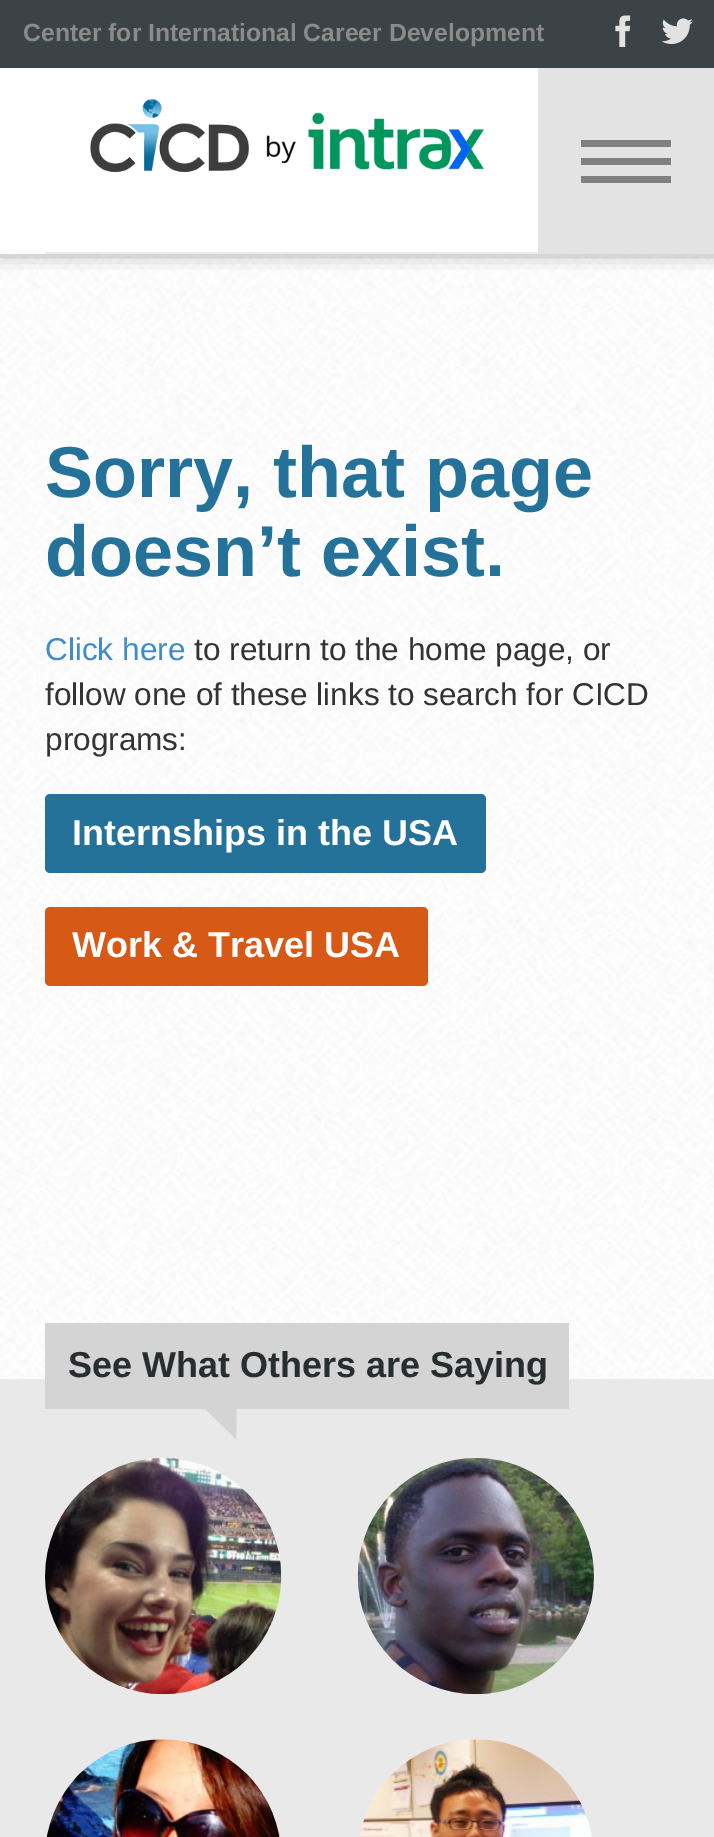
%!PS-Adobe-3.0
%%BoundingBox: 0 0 714 1837
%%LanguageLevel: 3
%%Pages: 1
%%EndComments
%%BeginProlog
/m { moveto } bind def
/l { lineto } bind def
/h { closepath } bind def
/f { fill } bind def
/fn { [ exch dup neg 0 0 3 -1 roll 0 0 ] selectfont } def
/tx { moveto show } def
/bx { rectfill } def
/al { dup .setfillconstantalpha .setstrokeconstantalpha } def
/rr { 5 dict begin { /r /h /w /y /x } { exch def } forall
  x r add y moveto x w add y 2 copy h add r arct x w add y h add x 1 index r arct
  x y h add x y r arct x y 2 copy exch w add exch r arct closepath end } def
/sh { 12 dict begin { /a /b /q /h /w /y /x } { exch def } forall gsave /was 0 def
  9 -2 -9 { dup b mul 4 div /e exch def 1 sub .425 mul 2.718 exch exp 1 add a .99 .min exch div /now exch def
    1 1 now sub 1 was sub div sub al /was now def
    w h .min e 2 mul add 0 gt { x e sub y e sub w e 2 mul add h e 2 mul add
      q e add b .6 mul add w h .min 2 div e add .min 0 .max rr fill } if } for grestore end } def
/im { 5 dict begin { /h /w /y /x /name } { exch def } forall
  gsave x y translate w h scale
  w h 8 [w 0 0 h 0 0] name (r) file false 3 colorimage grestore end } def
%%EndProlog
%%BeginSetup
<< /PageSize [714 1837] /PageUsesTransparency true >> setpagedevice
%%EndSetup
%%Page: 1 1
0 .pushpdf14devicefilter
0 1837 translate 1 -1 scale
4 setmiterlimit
1 setgray
0 0 714 1837 bx
(image0.raw) 0 254 714 1125 im
0 setgray
0 -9 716 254 0 11 1 sh
1 setgray
0 68 538 186 bx
0.231 0.263 0.275 setrgbcolor
0 0 714 68 bx
/LiberationSans-Bold 24.75 fn
0.545 setgray
(Center for International Career Development) 23 41 tx
(image1.raw) 615 15 16 32 im
(image2.raw) 661 18 32 26 im
(image3.raw) 90 99 394 74 im
0.89 setgray
538 68 176 186 bx
0.502 setgray
581 140 90 7 bx
581 158 90 7 bx
581 176 90 7 bx
0.922 setgray
45 252 493 2 bx
/LiberationSans-Bold 72 fn
0.141 0.447 0.604 setrgbcolor
(Sorry, that page) 45 497 tx
(doesn’t exist.) 45 576 tx
/LiberationSans-Regular 31.5 fn
0.259 0.545 0.792 setrgbcolor
(Click here) 45 660 tx
0.2 setgray
(to return to the home page, or) 194 660 tx
(follow one of these links to search for CICD) 45 705 tx
(programs:) 45 750 tx
0.141 0.447 0.604 setrgbcolor
45 794 441 79 5 rr f
/LiberationSans-Bold 36 fn
1 setgray
(Internships in the USA) 72 845 tx
0.839 0.349 0.086 setrgbcolor
45 907 383 79 5 rr f
1 setgray
(Work & Travel USA) 72 957 tx
0.914 setgray
0 1379 714 458 bx
0.831 setgray
45 1323 524 86 bx
0.157 0.176 0.188 setrgbcolor
(See What Others are Saying) 68 1377 tx
0.831 setgray
204 1408 m 237 1395 l 236 1439 l h f
(image4.raw) 45 1458 237 237 im
(image5.raw) 357 1458 237 237 im
(image6.raw) 46 1739 234 98 im
(image7.raw) 359 1739 233 98 im
.poppdf14devicefilter showpage
%%EOF
